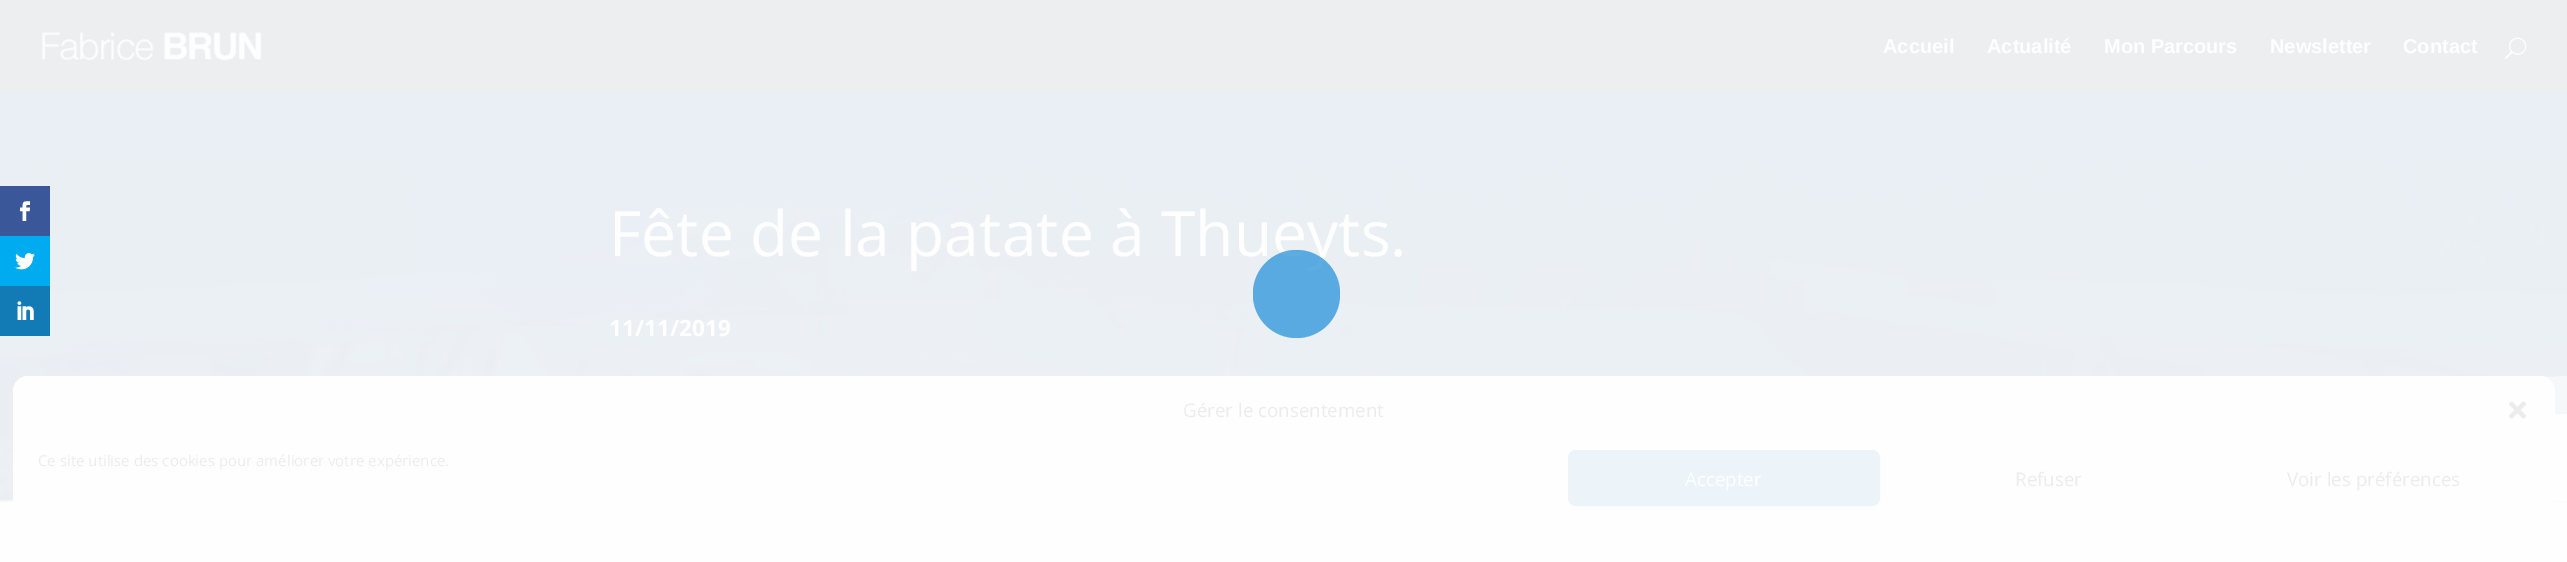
%!PS-Adobe-3.0
%%BoundingBox: 0 0 2567 562
%%LanguageLevel: 3
%%Pages: 1
%%EndComments
%%BeginProlog
/m { moveto } bind def
/l { lineto } bind def
/h { closepath } bind def
/f { fill } bind def
/S { stroke } bind def
/q { gsave } bind def
/Q { grestore } bind def
/fn { [ exch dup neg 0 0 3 -1 roll 0 0 ] selectfont } def
/tx { moveto show } def
/bx { rectfill } def
/al { dup .setfillconstantalpha .setstrokeconstantalpha } def
/rr { 5 dict begin { /r /h /w /y /x } { exch def } forall
  x r add y moveto x w add y 2 copy h add r arct x w add y h add x 1 index r arct
  x y h add x y r arct x y 2 copy exch w add exch r arct closepath end } def
/im { 5 dict begin { /h /w /y /x /name } { exch def } forall
  gsave x y translate w h scale
  w h 8 [w 0 0 h 0 0] name (r) file false 3 colorimage grestore end } def
%%EndProlog
%%BeginSetup
<< /PageSize [2567 562] /PageUsesTransparency true >> setpagedevice
%%EndSetup
%%Page: 1 1
0 .pushpdf14devicefilter
0 562 translate 1 -1 scale
4 setmiterlimit
0.996 setgray
0 0 2567 562 bx
(image5.raw) 0 93 2567 409 im
0.227 0.341 0.604 setrgbcolor
0 186 50 50 bx
(image0.raw) 20 201 10 20 im
0 0.671 0.941 setrgbcolor
0 236 50 50 bx
(image1.raw) 15 253 20 17 im
0.071 0.482 0.714 setrgbcolor
0 286 50 50 bx
(image2.raw) 17 301 17 19 im
0.925 0.933 0.941 setrgbcolor
0 0 2567 93 bx
(image3.raw) 42 32 220 29 im
/LiberationSans-Bold 20 fn
0.996 setgray
(Accueil) 1883 53 tx
(Actualité) 1987 53 tx
(Mon Parcours) 2104 53 tx
(Newsletter) 2270 53 tx
(Contact) 2403 53 tx
(image4.raw) 2505 37 22 22 im
/OpenSans-Regular 62.5 fn
(Fête de la patate à Thueyts.) 609 256 tx
/OpenSans-Bold 22.5 fn
(11/11/2019) 609 336 tx
0.5 al
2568 376 m 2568 501 l 0 501 l h f
1 al
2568 414 m 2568 501 l 0 501 l h f
0.55 al
0.204 0.596 0.859 setrgbcolor
1253 250 87 88 43.5 rr f
1253 250 87 88 43.5 rr f
1 al
0.996 setgray
13 376 2542 174 15 rr f
/OpenSans-Regular 18.75 fn
0.925 setgray
(Gérer le consentement) 1183 417 tx
(image6.raw) 2508 401 19 18 im
/OpenSans-Regular 15 fn
(Ce site utilise des cookies pour améliorer votre expérience.) 38 466 tx
0.925 0.953 0.976 setrgbcolor
1568.5 450.5 311 55 7.5 rr q f Q
S
/OpenSans-Regular 18.75 fn
0.996 setgray
(Accepter) 1685 486 tx
0.925 setgray
(Refuser) 2015 486 tx
(Voir les préférences) 2287 486 tx
.poppdf14devicefilter showpage
%%EOF
